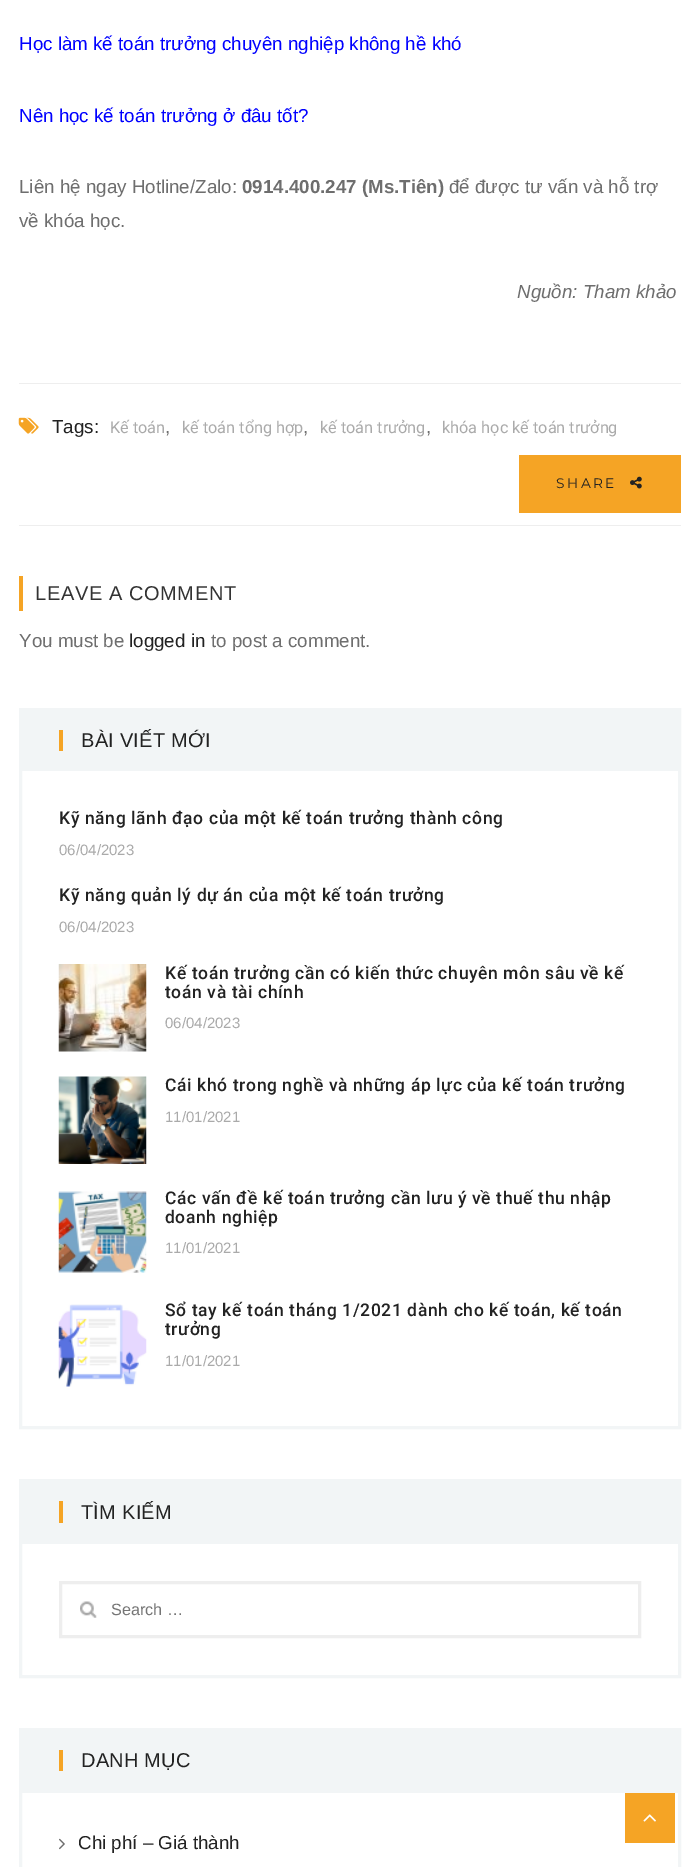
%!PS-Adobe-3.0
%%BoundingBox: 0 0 700 1867
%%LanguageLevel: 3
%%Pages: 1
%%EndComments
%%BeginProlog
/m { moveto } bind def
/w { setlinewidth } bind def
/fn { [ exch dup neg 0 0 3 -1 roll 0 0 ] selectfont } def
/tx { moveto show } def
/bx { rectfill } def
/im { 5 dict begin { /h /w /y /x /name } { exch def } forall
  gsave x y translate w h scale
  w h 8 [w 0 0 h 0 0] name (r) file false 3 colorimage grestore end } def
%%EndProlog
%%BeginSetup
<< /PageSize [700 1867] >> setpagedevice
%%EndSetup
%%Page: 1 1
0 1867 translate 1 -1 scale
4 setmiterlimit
1 setgray
0 0 700 1867 bx
/LiberationSans-Regular 18.75 fn
0 0 1 setrgbcolor
(Học làm kế toán trưởng chuyên nghiệp không hề khó) 19 50 tx
(Nên học kế toán trưởng ở đâu tốt?) 19 122 tx
0.431 setgray
(Liên hệ ngay Hotline/Zalo:) 19 193 tx
/LiberationSans-Bold 18.75 fn
(0914.400.247 \(Ms.Tiên\)) 242 193 tx
/LiberationSans-Regular 18.75 fn
(để được tư vấn và hỗ trợ) 449 193 tx
(về khóa học.) 19 227 tx
/LiberationSans-Italic 18.75 fn
(Nguồn: Tham khảo) 517 298 tx
0.933 setgray
19 383 662 1 bx
19 525 662 1 bx
(image0.raw) 18 417 21 17 im
/LiberationSans-Regular 18.75 fn
0.133 setgray
(Tags:) 52 433 tx
/Roboto-Regular 16.25 fn
0.667 setgray
(Kế toán) 110 433 tx
/LiberationSans-Regular 18.75 fn
0.431 setgray
(,) 165 433 tx
/Roboto-Regular 16.25 fn
0.667 setgray
(kế toán tổng hợp) 182 433 tx
/LiberationSans-Regular 18.75 fn
0.431 setgray
(,) 303 433 tx
/Roboto-Regular 16.25 fn
0.667 setgray
(kế toán trưởng) 320 433 tx
/LiberationSans-Regular 18.75 fn
0.431 setgray
(,) 426 433 tx
/Roboto-Regular 16.25 fn
0.667 setgray
(khóa học kế toán trưởng) 442 433 tx
0.961 0.643 0.145 setrgbcolor
519 455 162 58 bx
/Montserrat-Regular 13.75 fn
0.133 setgray
556 488 m 2.5 0 (SHARE) ashow
(image1.raw) 630 476 12 13 im
0.961 0.643 0.145 setrgbcolor
19 576 4 35 bx
/LiberationSans-Regular 20 fn
0.2 setgray
35 600 m 0.62 0 (LEAVE A COMMENT) ashow
/LiberationSans-Regular 18.75 fn
0.431 setgray
(You must be) 19 647 tx
0.133 setgray
(logged in) 129 647 tx
0.431 setgray
(to post a comment.) 211 647 tx
0.949 0.961 0.965 setrgbcolor
3 w
20.5 709.5 659 718 rectstroke
22 711 656 60 bx
/LiberationSans-Regular 20 fn
0.133 setgray
81 747 m 0.25 0 (BÀI VIẾT MỚI) ashow
0.961 0.643 0.145 setrgbcolor
59 730 4 21 bx
/Roboto-Medium 17.5 fn
0.133 setgray
59 824 m 0.62 0 (Kỹ năng lãnh đạo của một kế toán trưởng thành công) ashow
/LiberationSans-Regular 15 fn
0.667 setgray
(06/04/2023) 59 855 tx
/Roboto-Medium 17.5 fn
0.133 setgray
59 901 m 0.62 0 (Kỹ năng quản lý dự án của một kế toán trưởng) ashow
/LiberationSans-Regular 15 fn
0.667 setgray
(06/04/2023) 59 932 tx
(image2.raw) 58 964 89 88 im
/Roboto-Medium 17.5 fn
0.133 setgray
165 979 m 0.62 0 (Kế toán trưởng cần có kiến thức chuyên môn sâu về kế) ashow
165 998 m 0.62 0 (toán và tài chính) ashow
/LiberationSans-Regular 15 fn
0.667 setgray
(06/04/2023) 165 1028 tx
(image3.raw) 58 1076 89 88 im
/Roboto-Medium 17.5 fn
0.133 setgray
165 1091 m 0.62 0 (Cái khó trong nghề và những áp lực của kế toán trưởng) ashow
/LiberationSans-Regular 15 fn
0.667 setgray
(11/01/2021) 165 1122 tx
(image4.raw) 58 1191 89 82 im
/Roboto-Medium 17.5 fn
0.133 setgray
165 1204 m 0.62 0 (Các vấn đề kế toán trưởng cần lưu ý về thuế thu nhập) ashow
165 1223 m 0.62 0 (doanh nghiệp) ashow
/LiberationSans-Regular 15 fn
0.667 setgray
(11/01/2021) 165 1253 tx
(image5.raw) 58 1304 89 83 im
/Roboto-Medium 17.5 fn
0.133 setgray
165 1316 m 0.62 0 (Sổ tay kế toán tháng 1/2021 dành cho kế toán, kế toán) ashow
165 1335 m 0.62 0 (trưởng) ashow
/LiberationSans-Regular 15 fn
0.667 setgray
(11/01/2021) 165 1366 tx
0.949 0.961 0.965 setrgbcolor
20.5 1480.5 659 196 rectstroke
22 1482 656 62 bx
/LiberationSans-Regular 20 fn
0.133 setgray
81 1519 m 0.25 0 (TÌM KIẾM) ashow
0.961 0.643 0.145 setrgbcolor
59 1501 4 22 bx
(image6.raw) 80 1601 17 17 im
0.933 setgray
60.5 1582.5 579 54 rectstroke
/LiberationSans-Regular 16.25 fn
0.459 setgray
(Search …) 111 1615 tx
0.949 0.961 0.965 setrgbcolor
20.5 1729.5 659 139 rectstroke
22 1731 656 62 bx
/LiberationSans-Regular 20 fn
0.133 setgray
81 1767 m 0.25 0 (DANH MỤC) ashow
0.961 0.643 0.145 setrgbcolor
59 1750 4 21 bx
(image7.raw) 59 1838 6 12 im
/LiberationSans-Regular 18.75 fn
0.133 setgray
(Chi phí – Giá thành) 78 1849 tx
0.961 0.643 0.145 setrgbcolor
625 1793 50 50 bx
(image8.raw) 643 1814 13 8 im
showpage
%%EOF
